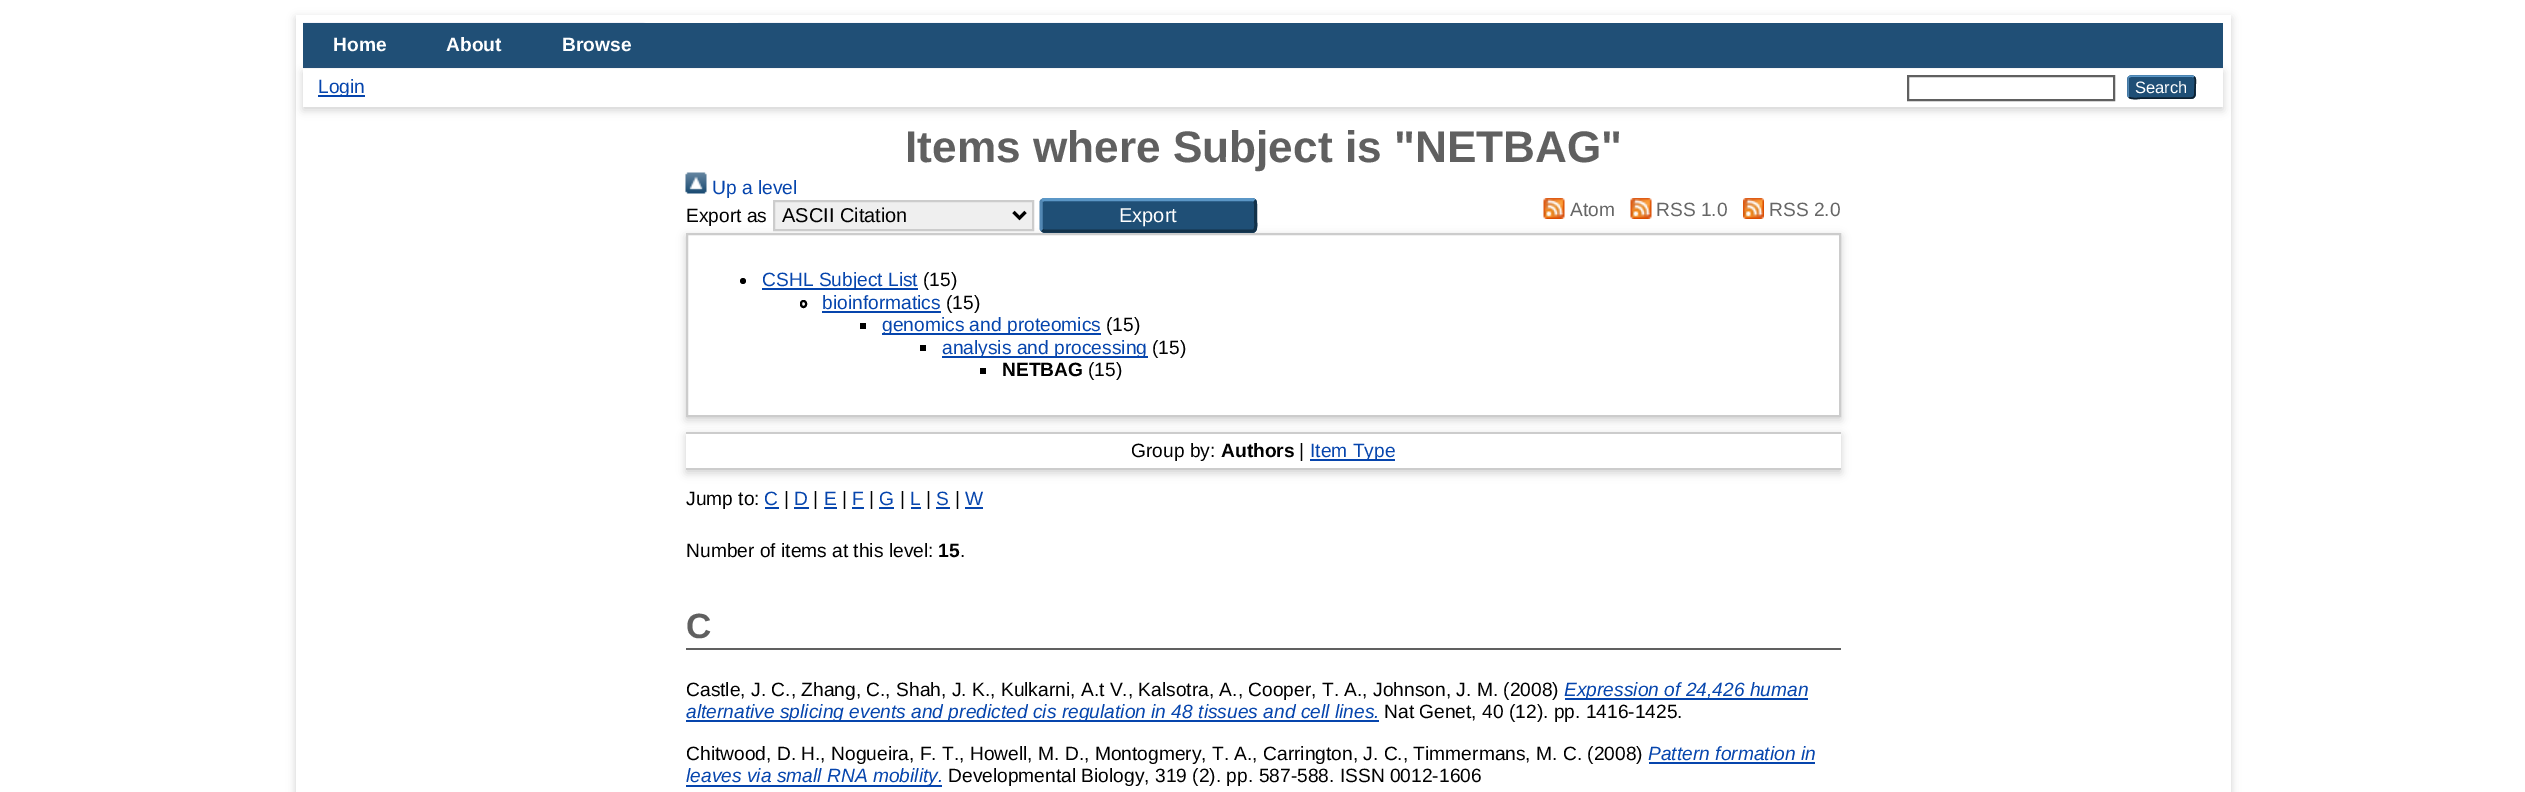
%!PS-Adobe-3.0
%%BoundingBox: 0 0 2525 792
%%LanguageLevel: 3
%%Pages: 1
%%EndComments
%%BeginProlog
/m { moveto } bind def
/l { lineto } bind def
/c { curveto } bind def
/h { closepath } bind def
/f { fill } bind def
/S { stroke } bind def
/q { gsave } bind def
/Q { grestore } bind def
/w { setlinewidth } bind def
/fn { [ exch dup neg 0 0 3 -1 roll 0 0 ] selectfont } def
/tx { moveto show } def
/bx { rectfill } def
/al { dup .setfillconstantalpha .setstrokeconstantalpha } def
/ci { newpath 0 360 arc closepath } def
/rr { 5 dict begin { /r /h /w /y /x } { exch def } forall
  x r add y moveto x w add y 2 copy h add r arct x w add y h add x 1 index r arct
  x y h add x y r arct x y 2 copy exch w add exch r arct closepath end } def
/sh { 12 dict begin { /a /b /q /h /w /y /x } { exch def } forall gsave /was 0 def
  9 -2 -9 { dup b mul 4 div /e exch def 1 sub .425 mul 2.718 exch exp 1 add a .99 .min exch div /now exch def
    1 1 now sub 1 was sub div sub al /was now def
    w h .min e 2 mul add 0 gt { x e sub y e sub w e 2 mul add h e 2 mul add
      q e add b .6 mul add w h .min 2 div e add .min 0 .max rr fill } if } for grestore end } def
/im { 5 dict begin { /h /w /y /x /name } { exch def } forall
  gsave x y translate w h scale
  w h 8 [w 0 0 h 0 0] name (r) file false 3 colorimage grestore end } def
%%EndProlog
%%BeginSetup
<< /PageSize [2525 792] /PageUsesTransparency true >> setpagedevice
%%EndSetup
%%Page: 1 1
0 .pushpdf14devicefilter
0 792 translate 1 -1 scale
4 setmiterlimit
1 setgray
0 0 2525 792 bx
0.392 setgray
296 18 1935 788 0 4.5 0.3 sh
1 setgray
296 15 1935 777 bx
(image0.raw) 303 22 847 1 im
0.125 0.31 0.463 setrgbcolor
303 23 1920 45 bx
/LiberationSans-Bold 19.2 fn
1 setgray
(Home) 333 51 tx
(About) 446 51 tx
(Browse) 562 51 tx
0.392 setgray
303 72 1920 38 0 4.5 0.3 sh
1 setgray
303 69 1920 38 bx
0.024 0.271 0.678 setrgbcolor
318 95 47 2 bx
/LiberationSans-Regular 19.2 fn
(Login) 318 93 tx
0.376 setgray
2 w
1908 76 206 24 rectstroke
0.122 0.31 0.463 setrgbcolor
2127 75 69 24 5 rr f
0.357 0.592 0.78 setrgbcolor
1.5 w
2129 77 m 2131 76 l 2192 76 l 2194 77 l S
0.051 0.129 0.192 setrgbcolor
2194 77 m 2196.5 79 2195 84 2195 87 c 2195 100 2195.5 98 2181.5 98 c 2141.5 98 l 2141 98 2131.5 100 2129 97 c S
0.322 0.529 0.702 setrgbcolor
2129 97 m 2128 96.5 2128 95.5 2128 94.5 c 2128 79.5 l 2128 78.5 2128 77.5 2129 77 c S
/LiberationSans-Regular 16.5 fn
1 setgray
(Search) 2135 93 tx
/LiberationSans-Bold 44.2 fn
0.376 setgray
(Items where Subject is "NETBAG") 905 162 tx
(image1.raw) 685 172 22 22 im
/LiberationSans-Regular 19.2 fn
0.024 0.271 0.678 setrgbcolor
(Up a level) 712 194 tx
0.392 setgray
686 236 1155 184 0 4.5 0.3 sh
0 setgray
(Export as) 686 222 tx
0.937 setgray
774 201 m 1033 201 l 1033 230 l 774 230 l h q f Q
0.8 setgray
2 w
S
0 setgray
3 w
1013.5 212 m 1019.5 218 l 1025.5 212 l S
/LiberationSans-Regular 20 fn
(ASCII Citation) 782 222 tx
0.122 0.31 0.463 setrgbcolor
1040 198 217 35 5 rr f
0.357 0.592 0.78 setrgbcolor
1042 200.5 m 1044 199.5 l 1252.5 199.5 l 1254.5 200.5 l S
0.075 0.196 0.29 setrgbcolor
1254.5 200.5 m 1256.5 202.5 1255.5 216 1255.5 219.5 c 1255.5 221.5 1257 229.5 1253.5 231 c 1044 231 l 1042 230 l S
0.322 0.529 0.702 setrgbcolor
1042 230 m 1041.5 229.5 1041 229 1041 228 c 1041 202.5 l 1041 201.5 1041.5 201 1042 200.5 c S
1 setgray
(Export) 1119 222 tx
(image2.raw) 1543 198 22 21 im
/LiberationSans-Regular 19.2 fn
0.4 setgray
(Atom) 1570 216 tx
(image2.raw) 1630 198 22 21 im
(RSS 1.0) 1656 216 tx
(image3.raw) 1743 198 21 21 im
(RSS 2.0) 1769 216 tx
1 setgray
687 234 m 1840 234 l 1840 416 l 687 416 l h q f Q
0.8 setgray
2 w
S
0 setgray
743 281 3 ci f
0.024 0.271 0.678 setrgbcolor
762 288 156 2 bx
(CSHL Subject List) 762 286 tx
0 setgray
(\(15\)) 923 286 tx
801 301 5 6 2.5 rr S
0.024 0.271 0.678 setrgbcolor
(bioinformatics) 822 309 tx
822 311 119 2 bx
0 setgray
(\(15\)) 946 309 tx
860 323 6 6 bx
0.024 0.271 0.678 setrgbcolor
882 333 219 2 bx
(genomics and proteomics) 882 331 tx
0 setgray
(\(15\)) 1106 331 tx
920 345 6 6 bx
0.024 0.271 0.678 setrgbcolor
942 356 206 2 bx
(analysis and processing) 942 354 tx
0 setgray
(\(15\)) 1152 354 tx
980 368 6 6 bx
/LiberationSans-Bold 19.2 fn
(NETBAG) 1002 376 tx
/LiberationSans-Regular 19.2 fn
(\(15\)) 1088 376 tx
0.392 setgray
686 435 1155 38 0 4.5 0.3 sh
1 setgray
686 434 1155 34 bx
0.8 setgray
686 432 1155 2 bx
686 468 1155 2 bx
0 setgray
(Group by:) 1131 457 tx
/LiberationSans-Bold 19.2 fn
(Authors) 1221 457 tx
/LiberationSans-Regular 19.2 fn
(|) 1299 457 tx
0.024 0.271 0.678 setrgbcolor
1310 459 85 2 bx
(Item Type) 1310 457 tx
0 setgray
(Jump to:) 686 505 tx
0.024 0.271 0.678 setrgbcolor
(C) 764 505 tx
765 507 14 2 bx
0 setgray
(|) 784 505 tx
0.024 0.271 0.678 setrgbcolor
(D) 794 505 tx
794 507 15 2 bx
0 setgray
(|) 813 505 tx
0.024 0.271 0.678 setrgbcolor
(E) 824 505 tx
824 507 13 2 bx
0 setgray
(|) 842 505 tx
0.024 0.271 0.678 setrgbcolor
(F) 852 505 tx
852 507 12 2 bx
0 setgray
(|) 869 505 tx
0.024 0.271 0.678 setrgbcolor
(G) 879 505 tx
879 507 15 2 bx
0 setgray
(|) 900 505 tx
0.024 0.271 0.678 setrgbcolor
(L) 910 505 tx
911 507 10 2 bx
0 setgray
(|) 926 505 tx
0.024 0.271 0.678 setrgbcolor
(S) 936 505 tx
936 507 14 2 bx
0 setgray
(|) 955 505 tx
0.024 0.271 0.678 setrgbcolor
(W) 965 505 tx
965 507 18 2 bx
0 setgray
(Number of items at this level:) 686 557 tx
/LiberationSans-Bold 19.2 fn
(15) 938 557 tx
/LiberationSans-Regular 19.2 fn
(.) 960 557 tx
0.376 setgray
686 648 1155 2 bx
/LiberationSans-Bold 35 fn
(C) 686 638 tx
/LiberationSans-Regular 19.2 fn
0 setgray
(Castle, J. C., Zhang, C., Shah, J. K., Kulkarni, A.t V., Kalsotra, A., Cooper, T. A., Johnson, J. M. \(2008\)) 686 696 tx
0.024 0.271 0.678 setrgbcolor
1565 698 243 2 bx
/LiberationSans-Italic 19.2 fn
(Expression of 24,426 human) 1564 696 tx
686 720 693 2 bx
(alternative splicing events and predicted cis regulation in 48 tissues and cell lines.) 686 718 tx
/LiberationSans-Regular 19.2 fn
0 setgray
(Nat Genet, 40 \(12\). pp. 1416-1425.) 1384 718 tx
(Chitwood, D. H., Nogueira, F. T., Howell, M. D., Montogmery, T. A., Carrington, J. C., Timmermans, M. C. \(2008\)) 686 760 tx
/LiberationSans-Italic 19.2 fn
0.024 0.271 0.678 setrgbcolor
(Pattern formation in) 1648 760 tx
1649 762 166 2 bx
686 785 256 2 bx
(leaves via small RNA mobility.) 686 782 tx
/LiberationSans-Regular 19.2 fn
0 setgray
(Developmental Biology, 319 \(2\). pp. 587-588. ISSN 0012-1606) 948 782 tx
.poppdf14devicefilter showpage
%%EOF
